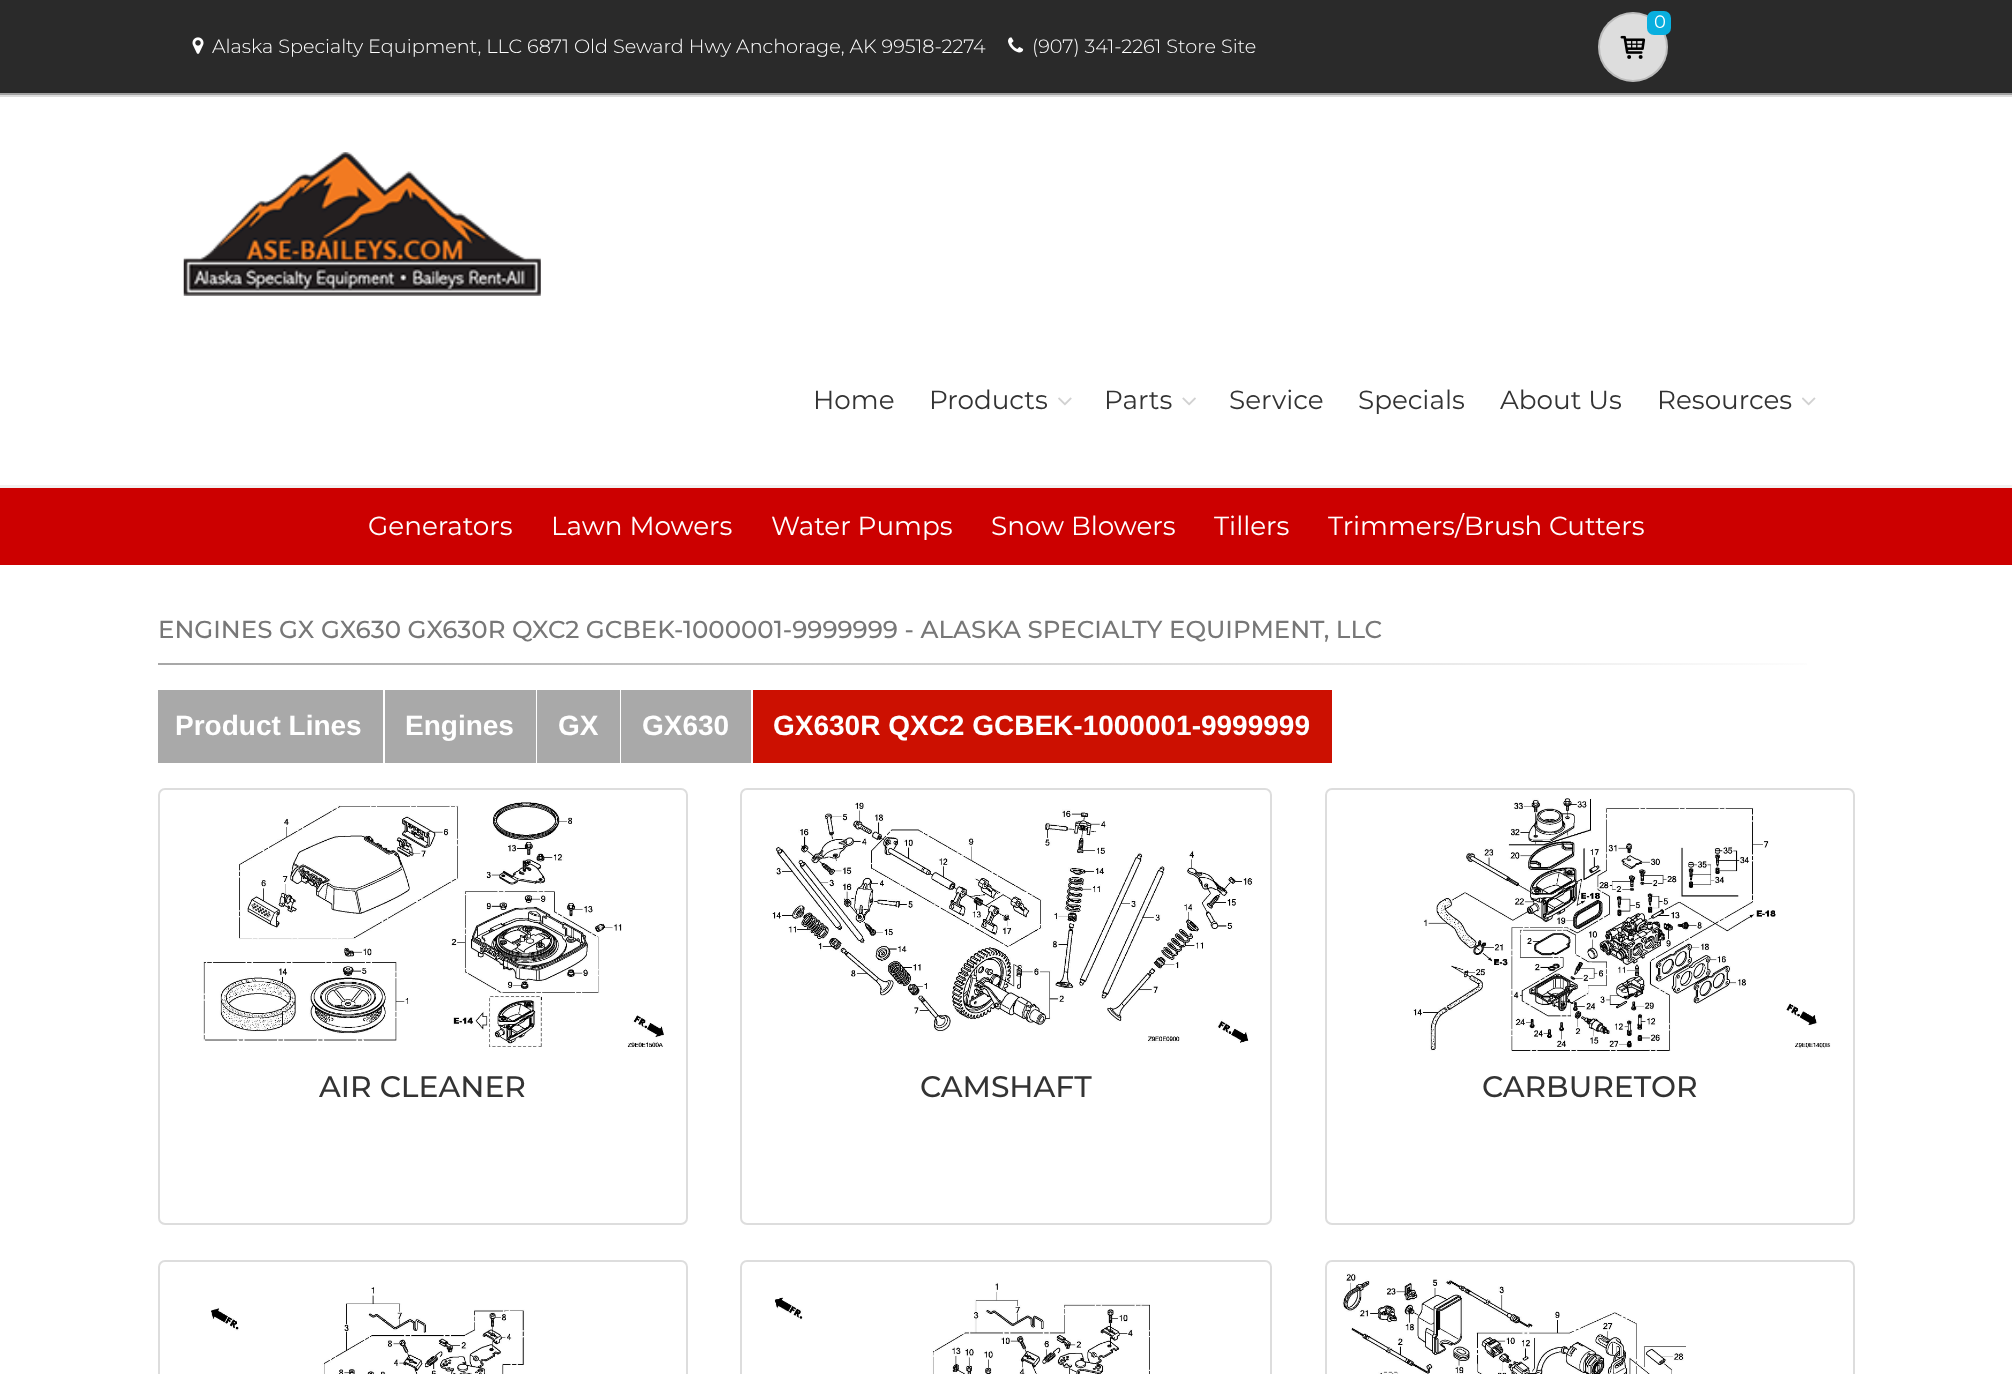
async function draw(canvas) {
	canvas.width = 2012;
	canvas.height = 1374;
	const c = canvas.getContext('2d');
	c.miterLimit = 4;
	c.fontKerning = 'normal';
	async function loadImage(src) {
		const img = new Image();
		img.src = src;
		await img.decode();
		return img;
	}
	let gradient;

	c.fillStyle = '#fff';
	c.fillRect(0, 0, 2012, 1374);
	c.fillStyle = '#2a2a2a';
	c.fillRect(0, 0, 2012, 93);
	c.fillStyle = '#a1a1a1';
	c.fillRect(0, 93, 2012, 2);
	c.fillStyle = '#ddd';
	c.beginPath();
	c.arc(1633, 47, 35, 0, 2 * Math.PI);
	c.fill();
	c.beginPath();
	c.arc(1633, 47, 34, 0, 2 * Math.PI);
	c.strokeStyle = '#00000026';
	c.lineWidth = 2;
	c.stroke();
	c.fillStyle = '#09afdf';
	c.beginPath();
	c.roundRect(1647, 11, 24, 24, 7);
	c.fill();
	c.font = '18px Montserrat';
	c.fillStyle = '#fff';
	c.fillText('0', 1654, 28);
	c.drawImage(await loadImage('img1.png'), 1620, 35, 26, 24);
	c.drawImage(await loadImage('img2.png'), 192, 37, 12, 17);
	c.font = '300 19.25px Montserrat';
	c.fillText('Alaska Specialty Equipment, LLC 6871 Old Seward Hwy Anchorage, AK 99518-2274', 212, 53);
	c.drawImage(await loadImage('img3.png'), 1008, 37, 16, 16);
	c.fillText('(907) 341-2261 Store Site', 1032, 53);
	c.fillStyle = '#ddd';
	c.fillRect(0, 95, 2012, 2);
	c.fillStyle = '#f1f1f1';
	c.fillRect(0, 485, 2012, 3);
	c.drawImage(await loadImage('img4.png'), 183, 152, 358, 144);
	c.font = '26.25px Montserrat';
	c.fillStyle = '#333';
	c.fillText('Home', 813, 409);
	c.fillText('Products', 929, 409);
	c.drawImage(await loadImage('img5.png'), 1058, 397, 14, 9);
	c.fillText('Parts', 1104, 409);
	c.drawImage(await loadImage('img6.png'), 1182, 397, 14, 9);
	for (const [text, x, y] of [
		['Service', 1229, 409],
		['Specials', 1358, 409],
		['About Us', 1500, 409],
		['Resources', 1657, 409],
	]) {
		c.fillText(text, x, y);
	}
	c.drawImage(await loadImage('img7.png'), 1802, 397, 14, 9);
	c.fillStyle = '#c00';
	c.fillRect(0, 488, 2012, 77);
	c.fillStyle = '#fff';
	for (const [text, x, y] of [
		['Generators', 368, 535],
		['Lawn Mowers', 551, 535],
		['Water Pumps', 771, 535],
		['Snow Blowers', 991, 535],
		['Tillers', 1214, 535],
		['Trimmers/Brush Cutters', 1328, 535],
	]) {
		c.fillText(text, x, y);
	}
	c.font = '500 24.5px Montserrat';
	c.fillStyle = '#777';
	c.fillText('ENGINES GX GX630 GX630R QXC2 GCBEK-1000001-9999999 - ALASKA SPECIALTY EQUIPMENT, LLC', 158, 638);
	gradient = c.createLinearGradient(158, 664, 1855, 664);
	gradient.addColorStop(0, '#a7a7a7');
	gradient.addColorStop(1, '#fff');
	c.fillStyle = gradient;
	c.fillRect(158, 663, 1649, 2);
	c.fillStyle = '#a9a9a9';
	c.fillRect(158, 690, 225, 73);
	c.font = 'bold 28px Liberation Sans';
	c.fillStyle = '#fff';
	c.fillText('Product Lines', 175, 735);
	c.fillStyle = '#a9a9a9';
	c.fillRect(385, 690, 151, 73);
	c.fillStyle = '#fff';
	c.fillText('Engines', 405, 735);
	c.fillStyle = '#a9a9a9';
	c.fillRect(537, 690, 83, 73);
	c.fillStyle = '#fff';
	c.fillText('GX', 558, 735);
	c.fillStyle = '#a9a9a9';
	c.fillRect(621, 690, 130, 73);
	c.fillStyle = '#fff';
	c.fillText('GX630', 642, 735);
	c.fillStyle = '#cc1001';
	c.fillRect(753, 690, 579, 73);
	c.fillStyle = '#fff';
	c.fillText('GX630R QXC2 GCBEK-1000001-9999999', 773, 735);
	c.beginPath();
	c.roundRect(159, 789, 528, 435, 6);
	c.strokeStyle = '#ddd';
	c.stroke();
	c.drawImage(await loadImage('img8.png'), 203, 802, 461, 245);
	c.font = '500 29.75px Montserrat';
	c.fillStyle = '#333';
	c.fillText('AIR CLEANER', 319, 1097);
	c.beginPath();
	c.roundRect(741, 789, 530, 435, 6);
	c.stroke();
	c.drawImage(await loadImage('img9.png'), 772, 802, 481, 241);
	c.fillText('CAMSHAFT', 920, 1097);
	c.beginPath();
	c.roundRect(1326, 789, 528, 435, 6);
	c.stroke();
	c.drawImage(await loadImage('img10.png'), 1413, 798, 418, 253);
	c.fillText('CARBURETOR', 1482, 1097);
	c.beginPath();
	c.roundRect(159, 1261, 528, 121, 6);
	c.stroke();
	c.drawImage(await loadImage('img11.png'), 211, 1287, 314, 87);
	c.beginPath();
	c.roundRect(741, 1261, 530, 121, 6);
	c.stroke();
	c.drawImage(await loadImage('img12.png'), 774, 1282, 376, 92);
	c.beginPath();
	c.roundRect(1326, 1261, 528, 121, 6);
	c.stroke();
	c.drawImage(await loadImage('img13.png'), 1342, 1273, 344, 101);
}

draw(document.querySelector('canvas'));
